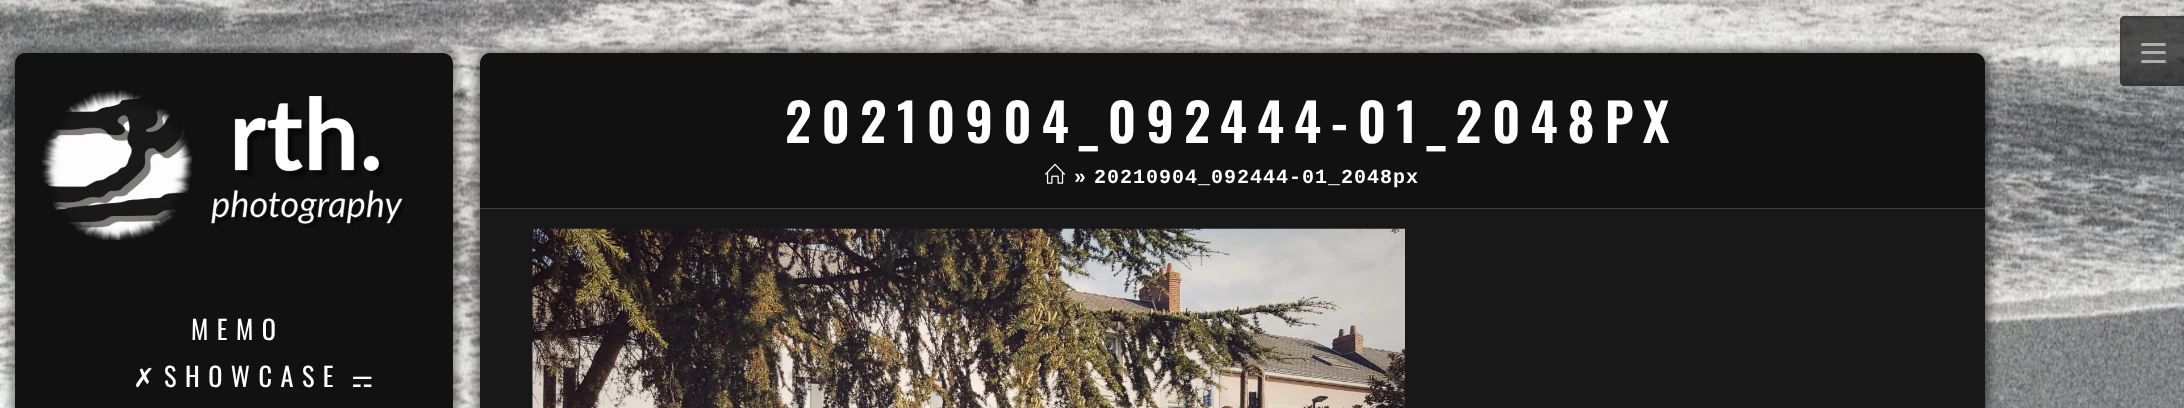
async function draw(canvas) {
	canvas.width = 2184;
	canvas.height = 408;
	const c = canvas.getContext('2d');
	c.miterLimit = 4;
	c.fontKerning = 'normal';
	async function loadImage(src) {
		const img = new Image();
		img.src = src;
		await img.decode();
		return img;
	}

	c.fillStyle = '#fff';
	c.fillRect(0, 0, 2184, 408);
	c.drawImage(await loadImage('img1.png'), 0, 0, 2184, 408);
	c.fillStyle = '#232323c4';
	c.beginPath();
	c.moveTo(2124, 16);
	c.lineTo(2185, 16);
	c.lineTo(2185, 86);
	c.lineTo(2124, 86);
	c.bezierCurveTo(2122, 86, 2120, 84, 2120, 82);
	c.lineTo(2120, 20);
	c.bezierCurveTo(2120, 18, 2122, 16, 2124, 16);
	c.closePath();
	c.fill();
	c.fillStyle = '#2323233b';
	c.beginPath();
	c.moveTo(2124, 16);
	c.lineTo(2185, 16);
	c.lineTo(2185, 86);
	c.lineTo(2124, 86);
	c.bezierCurveTo(2122, 86, 2120, 85, 2120, 82);
	c.lineTo(2120, 20);
	c.bezierCurveTo(2120, 18, 2122, 16, 2124, 16);
	c.closePath();
	c.moveTo(2124, 19);
	c.lineTo(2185, 19);
	c.lineTo(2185, 84);
	c.lineTo(2124, 84);
	c.bezierCurveTo(2123, 84, 2122, 83, 2122, 82);
	c.lineTo(2122, 20);
	c.bezierCurveTo(2122, 19, 2123, 19, 2124, 19);
	c.closePath();
	c.fill('evenodd');
	c.fillStyle = '#afafaf';
	c.beginPath();
	c.roundRect(2141, 51, 25, 3, 1.5);
	c.fill();
	c.beginPath();
	c.roundRect(2141, 43, 25, 3, 1.5);
	c.fill();
	c.beginPath();
	c.roundRect(2141, 60, 25, 3, 1.5);
	c.fill();
	c.fillStyle = '#00000026';
	c.filter = 'blur(2.5px)';
	c.beginPath();
	c.roundRect(480, 54, 1505, 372, 10);
	c.fill();
	c.filter = 'none';
	c.fillStyle = '#181818';
	c.beginPath();
	c.roundRect(480, 53, 1505, 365, 10);
	c.fill();
	c.save();
	c.beginPath();
	c.moveTo(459, 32);
	c.lineTo(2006, 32);
	c.lineTo(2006, 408);
	c.lineTo(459, 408);
	c.closePath();
	c.moveTo(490, 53);
	c.lineTo(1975, 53);
	c.bezierCurveTo(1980.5, 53, 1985, 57.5, 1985, 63);
	c.lineTo(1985, 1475);
	c.lineTo(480, 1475);
	c.lineTo(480, 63);
	c.bezierCurveTo(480, 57.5, 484.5, 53, 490, 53);
	c.closePath();
	c.clip('evenodd');
	c.fillStyle = '#00000066';
	c.filter = 'blur(5px)';
	c.beginPath();
	c.roundRect(475, 48, 1515, 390, 15);
	c.fill();
	c.filter = 'none';
	c.restore();
	c.fillStyle = '#111';
	c.beginPath();
	c.roundRect(480, 53, 1505, 156, [10, 10, 0, 0]);
	c.fill();
	c.fillStyle = '#424242';
	c.fillRect(480, 208, 1505, 1);
	c.letterSpacing = '10px';
	c.font = '600 52.5px Oswald';
	c.fillStyle = '#fff';
	c.fillText('20210904_092444-01_2048PX', 785, 143);
	c.drawImage(await loadImage('img2.png'), 1045, 163, 20, 21);
	c.letterSpacing = '1px';
	c.font = 'bold 20px Liberation Mono';
	c.fillText('»', 1074, 183);
	c.fillText('20210904_092444-01_2048px', 1094, 183);
	c.drawImage(await loadImage('img3.png'), 532, 228, 873, 180);
	c.fillStyle = '#00000066';
	c.filter = 'blur(5px)';
	c.beginPath();
	c.roundRect(10, 48, 448, 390, 15);
	c.fill();
	c.filter = 'none';
	c.fillStyle = '#111';
	c.beginPath();
	c.roundRect(15, 53, 438, 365, 10);
	c.fill();
	c.drawImage(await loadImage('img4.png'), 41, 90, 364, 150);
	c.letterSpacing = '1.25px';
	c.font = '26.25px Oswald';
	c.fillStyle = '#fff';
	c.fillText('M E M O', 191, 340);
	c.font = '26.25px DejaVu Sans';
	c.fillText('✗', 133, 387);
	c.font = '26.25px Oswald';
	c.fillText('S H O W C A S E', 164, 387);
	c.font = '25px DejaVu Sans';
	c.fillText('⚎', 351, 387);
}

draw(document.querySelector('canvas'));
